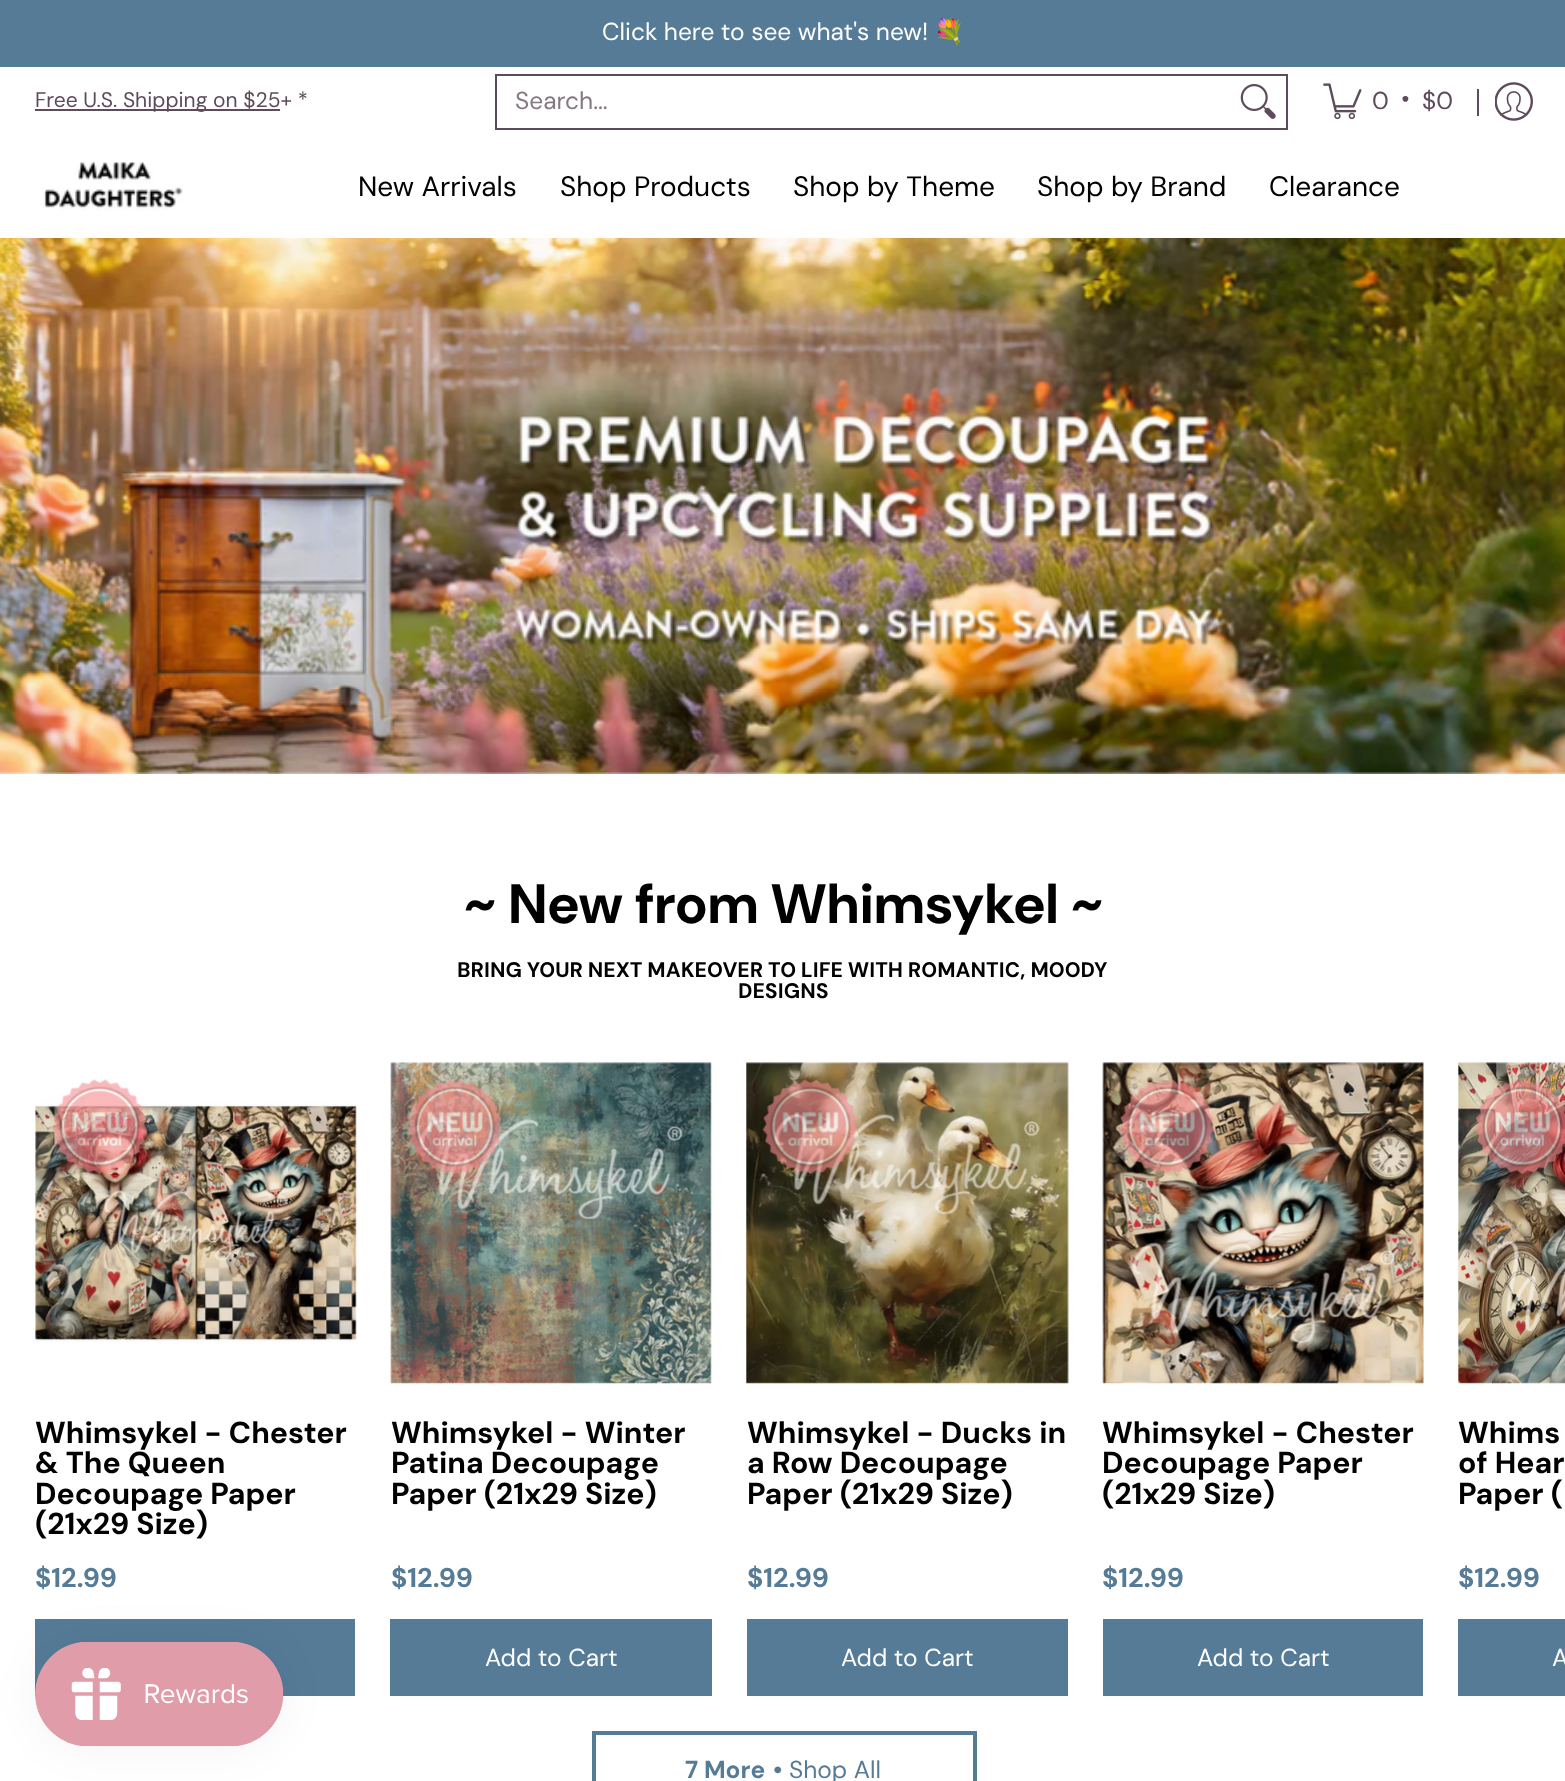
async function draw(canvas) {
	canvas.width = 1565;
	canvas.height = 1781;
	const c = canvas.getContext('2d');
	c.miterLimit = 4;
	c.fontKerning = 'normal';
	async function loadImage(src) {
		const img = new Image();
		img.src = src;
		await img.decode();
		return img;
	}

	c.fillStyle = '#fff';
	c.fillRect(0, 0, 1565, 1781);
	c.fillStyle = '#557b97';
	c.fillRect(0, 0, 1565, 67);
	c.font = '24.5px DM Sans';
	c.fillStyle = '#fdfdfd';
	c.fillText('Click here to see what\'s new!', 602, 40);
	c.font = '24.5px Noto Color Emoji';
	c.fillText('💐', 934, 40);
	c.fillStyle = '#5d4a5a';
	c.fillRect(35, 109, 245, 2);
	c.font = '21px "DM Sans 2"';
	c.fillText('Free U.S. Shipping on $25+ *', 35, 107);
	c.strokeStyle = '#5d4a5a';
	c.lineWidth = 2;
	c.strokeRect(496, 75, 791, 54);
	c.font = '24.5px DM Sans';
	c.fillStyle = '#857783';
	c.fillText('Search...', 515, 109);
	c.drawImage(await loadImage('img1.png'), 1240, 84, 36, 35);
	c.drawImage(await loadImage('img2.png'), 1323, 83, 39, 37);
	c.fillStyle = '#5d4a5a';
	for (const [text, x, y] of [
		['0', 1372, 109],
		['•', 1401, 107],
		['$0', 1422, 109],
	]) {
		c.fillText(text, x, y);
	}
	c.fillRect(1477, 89, 2, 27);
	c.drawImage(await loadImage('img3.png'), 1495, 82, 38, 39);
	c.drawImage(await loadImage('img4.png'), 43, 162, 140, 48);
	c.font = '28px "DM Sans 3"';
	c.fillStyle = '#000';
	for (const [text, x, y] of [
		['New Arrivals', 358, 196],
		['Shop Products', 560, 196],
		['Shop by Theme', 793, 196],
		['Shop by Brand', 1037, 196],
		['Clearance', 1269, 196],
	]) {
		c.fillText(text, x, y);
	}
	c.drawImage(await loadImage('img5.png'), 0, 238, 1565, 536);
	c.font = 'bold 55.5px "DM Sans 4"';
	c.fillText('~ New from Whimsykel ~', 464, 923);
	c.wordSpacing = '-0.25px';
	c.font = 'bold 21px "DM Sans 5"';
	c.fillText('BRING YOUR NEXT MAKEOVER TO LIFE WITH ROMANTIC, MOODY', 457, 977);
	c.wordSpacing = '0px';
	c.fillText('DESIGNS', 738, 998);
	c.drawImage(await loadImage('img6.png'), 35, 1079, 322, 265);
	c.font = 'bold 30.25px DM Sans';
	for (const [text, x, y] of [
		['Whimsykel - Chester', 35, 1443],
		['& The Queen', 35, 1473],
		['Decoupage Paper', 35, 1504],
		['(21x29 Size)', 35, 1534],
	]) {
		c.fillText(text, x, y);
	}
	c.font = 'bold 27px "DM Sans 2"';
	c.fillStyle = '#557b97';
	c.fillText('$12.99', 35, 1587);
	c.fillRect(35, 1619, 320, 77);
	c.drawImage(await loadImage('img7.png'), 390, 1062, 322, 322);
	c.font = 'bold 30.25px DM Sans';
	c.fillStyle = '#000';
	for (const [text, x, y] of [
		['Whimsykel - Winter', 391, 1443],
		['Patina Decoupage', 391, 1473],
		['Paper (21x29 Size)', 391, 1504],
	]) {
		c.fillText(text, x, y);
	}
	c.font = 'bold 27px "DM Sans 2"';
	c.fillStyle = '#557b97';
	c.fillText('$12.99', 391, 1587);
	c.fillRect(390, 1619, 322, 77);
	c.font = '24.5px DM Sans';
	c.fillStyle = '#fdfdfd';
	c.fillText('Add to Cart', 485, 1666);
	c.drawImage(await loadImage('img8.png'), 746, 1062, 323, 322);
	c.font = 'bold 30.25px DM Sans';
	c.fillStyle = '#000';
	for (const [text, x, y] of [
		['Whimsykel - Ducks in', 747, 1443],
		['a Row Decoupage', 747, 1473],
		['Paper (21x29 Size)', 747, 1504],
	]) {
		c.fillText(text, x, y);
	}
	c.font = 'bold 27px "DM Sans 2"';
	c.fillStyle = '#557b97';
	c.fillText('$12.99', 747, 1587);
	c.fillRect(747, 1619, 321, 77);
	c.font = '24.5px DM Sans';
	c.fillStyle = '#fdfdfd';
	c.fillText('Add to Cart', 841, 1666);
	c.drawImage(await loadImage('img9.png'), 1102, 1062, 322, 322);
	c.font = 'bold 30.25px DM Sans';
	c.fillStyle = '#000';
	for (const [text, x, y] of [
		['Whimsykel - Chester', 1102, 1443],
		['Decoupage Paper', 1102, 1473],
		['(21x29 Size)', 1102, 1504],
	]) {
		c.fillText(text, x, y);
	}
	c.font = 'bold 27px "DM Sans 2"';
	c.fillStyle = '#557b97';
	c.fillText('$12.99', 1102, 1587);
	c.fillRect(1103, 1619, 320, 77);
	c.font = '24.5px DM Sans';
	c.fillStyle = '#fdfdfd';
	c.fillText('Add to Cart', 1197, 1666);
	c.drawImage(await loadImage('img10.png'), 1458, 1062, 107, 322);
	c.font = 'bold 30.25px DM Sans';
	c.fillStyle = '#000';
	for (const [text, x, y] of [
		['Whims', 1458, 1443],
		['of Hear', 1458, 1473],
		['Paper (', 1458, 1504],
	]) {
		c.fillText(text, x, y);
	}
	c.font = 'bold 27px "DM Sans 2"';
	c.fillStyle = '#557b97';
	c.fillText('$12.99', 1458, 1587);
	c.fillRect(1458, 1619, 107, 77);
	c.font = '24.5px DM Sans';
	c.fillStyle = '#fdfdfd';
	c.fillText('A', 1552, 1666);
	c.strokeStyle = '#557b97';
	c.lineWidth = 4;
	c.strokeRect(594, 1733, 381, 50);
	c.font = 'bold 24.5px "DM Sans 3"';
	c.fillStyle = '#557b97';
	c.fillText('7 More', 685, 1778);
	c.fillText('•', 773, 1778);
	c.font = '24.5px DM Sans';
	c.fillText('Shop All', 789, 1778);
	c.fillStyle = '#0000000d';
	c.filter = 'blur(22px)';
	c.beginPath();
	c.roundRect(35, 1642, 249, 105, 52.5);
	c.fill();
	c.filter = 'none';
	c.drawImage(await loadImage('img11.png'), 35, 1641, 249, 106);
}

draw(document.querySelector('canvas'));
